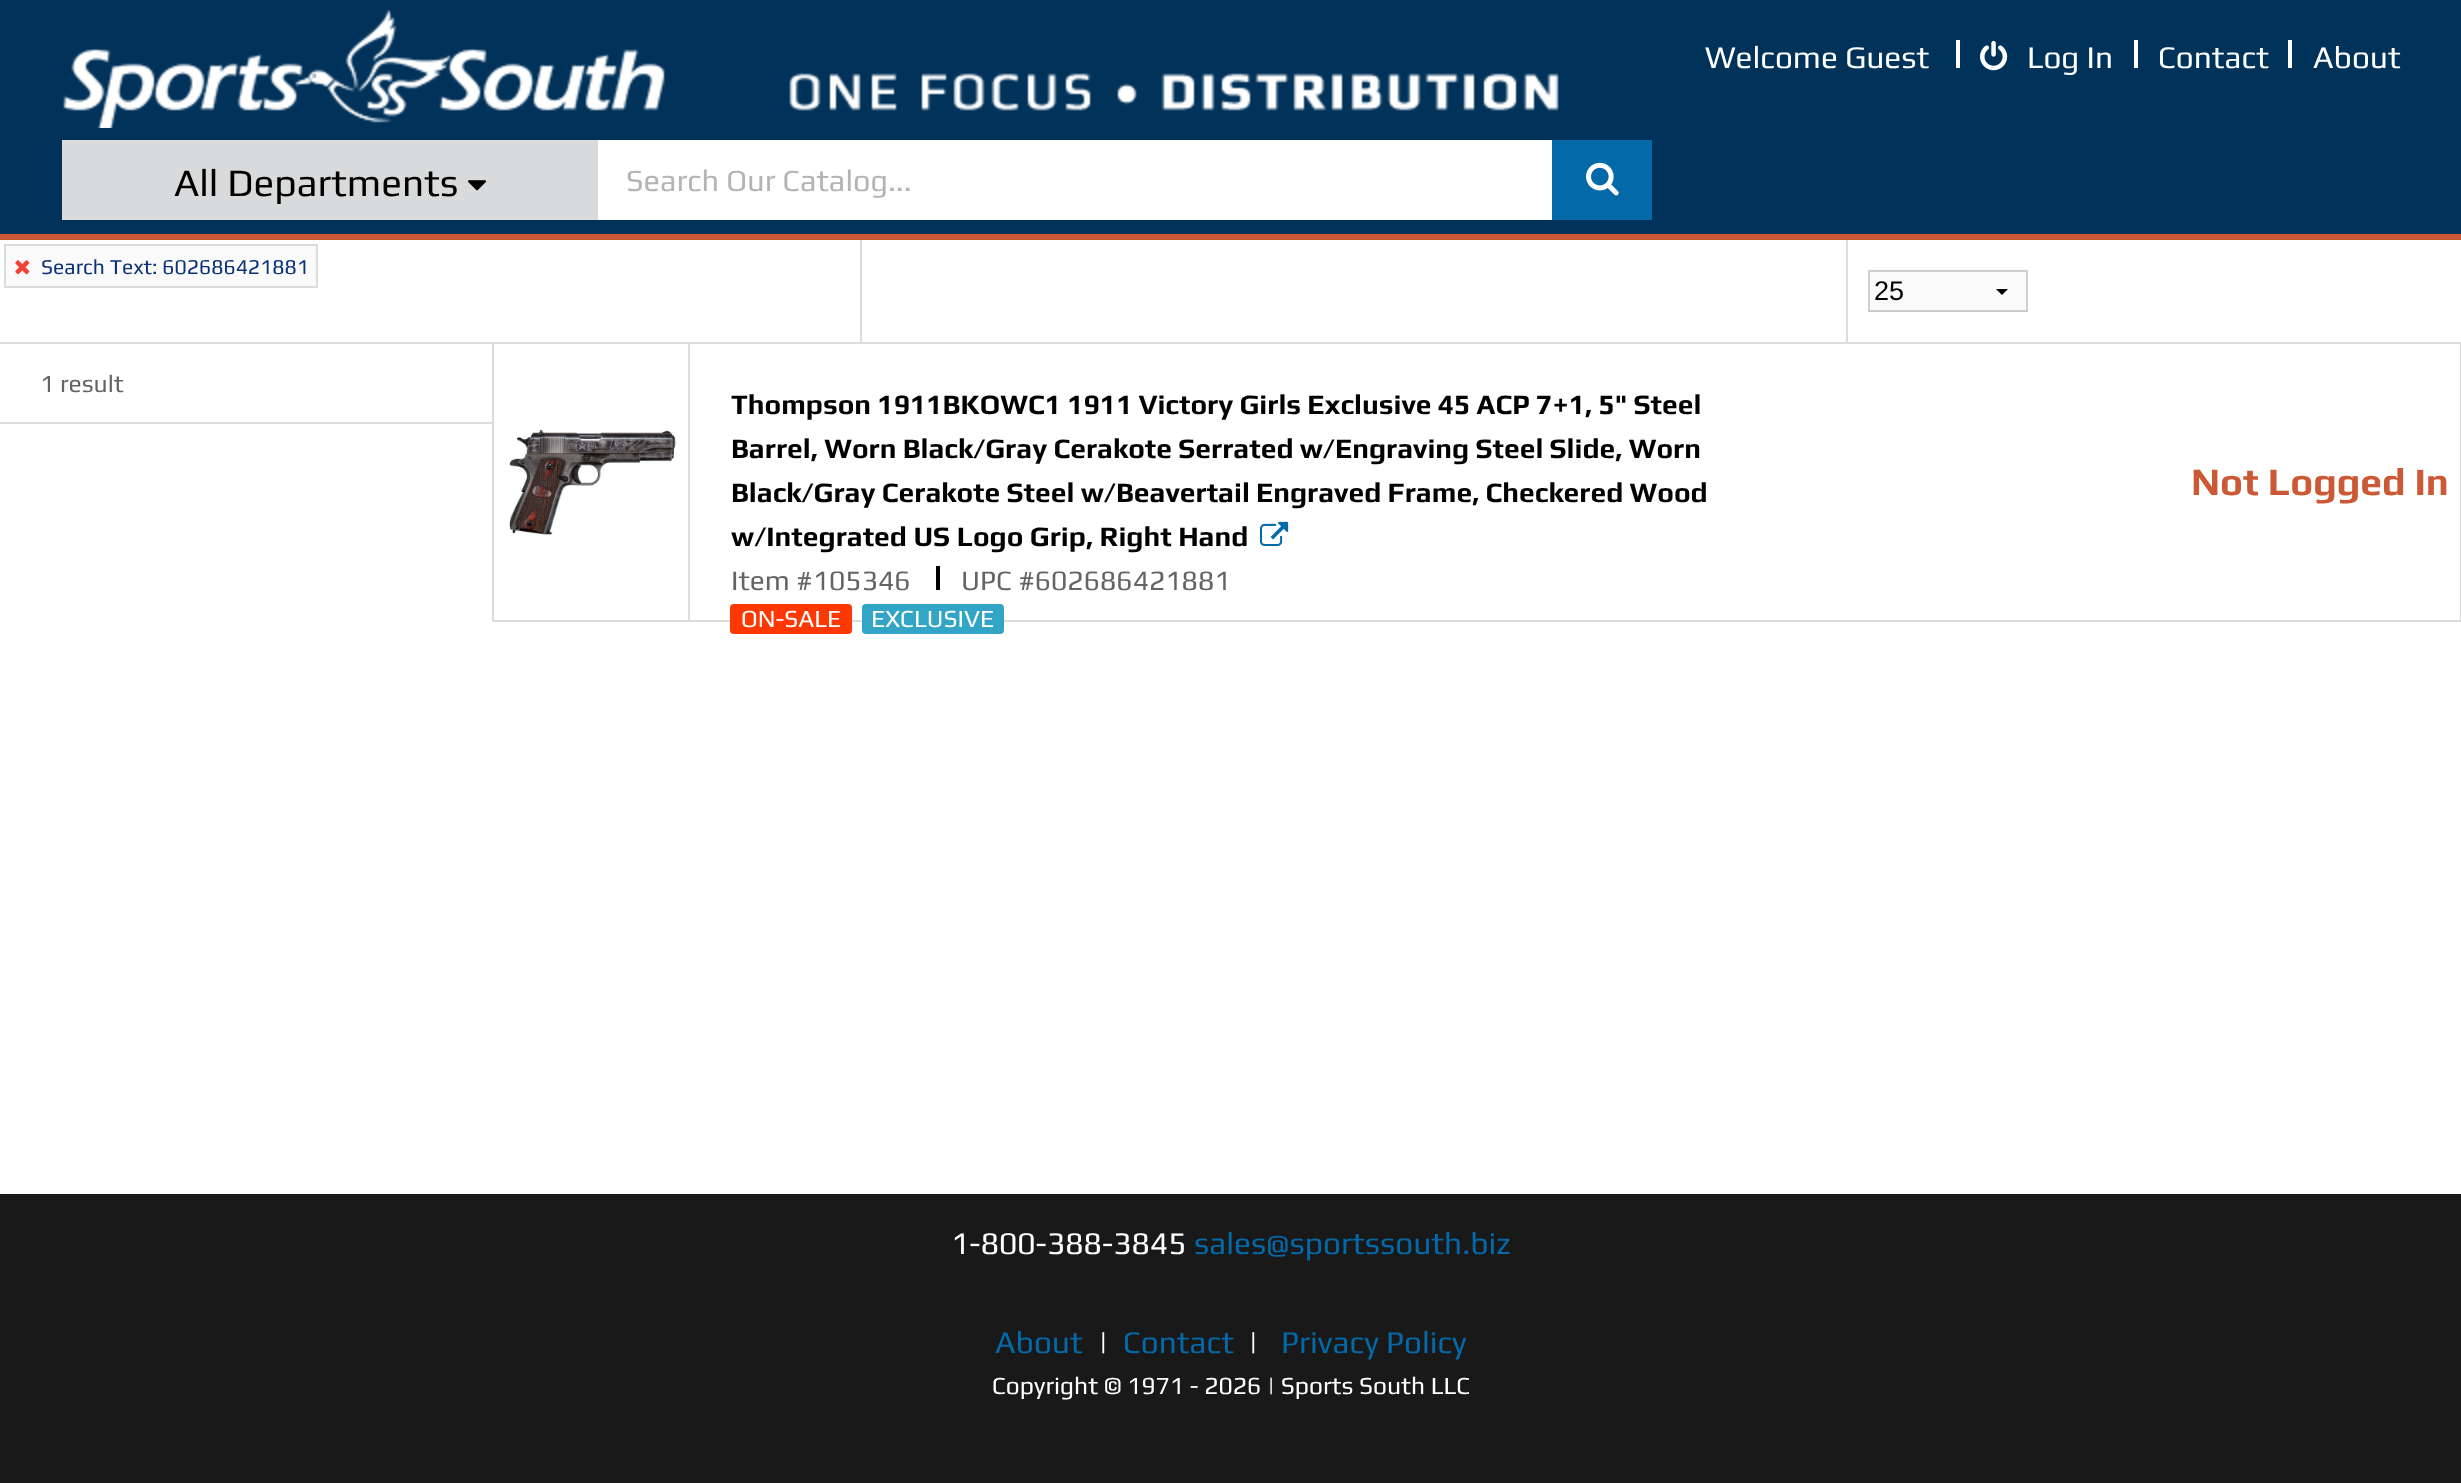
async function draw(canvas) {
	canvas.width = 2461;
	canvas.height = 1483;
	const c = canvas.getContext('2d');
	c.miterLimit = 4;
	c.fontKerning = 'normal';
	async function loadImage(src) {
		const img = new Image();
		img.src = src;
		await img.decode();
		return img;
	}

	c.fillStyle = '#fff';
	c.fillRect(0, 0, 2461, 1483);
	c.fillStyle = '#00325a';
	c.fillRect(0, 0, 2461, 234);
	c.fillStyle = '#cb5935';
	c.fillRect(0, 234, 2461, 6);
	c.drawImage(await loadImage('img1.png'), 63, 10, 1496, 118);
	c.font = '31.6px Play';
	c.fillStyle = '#fff';
	c.fillText('Welcome Guest', 1705, 68);
	c.fillRect(1956, 40, 4, 28);
	c.drawImage(await loadImage('img2.png'), 1980, 40, 28, 31);
	c.fillText('Log In', 2027, 68);
	c.fillRect(2134, 40, 4, 28);
	c.fillText('Contact', 2158, 68);
	c.fillRect(2288, 40, 4, 28);
	c.fillText('About', 2313, 68);
	c.fillStyle = '#d9dadb';
	c.fillRect(62, 140, 536, 80);
	c.font = '38.75px Play';
	c.fillStyle = '#000';
	c.fillText('All Departments', 174, 196);
	c.drawImage(await loadImage('img3.png'), 468, 180, 19, 11);
	c.fillStyle = '#fff';
	c.fillRect(598, 140, 954, 80);
	c.font = '30.75px Play';
	c.fillStyle = '#b4b4b4';
	c.fillText('Search Our Catalog...', 626, 191);
	c.fillStyle = '#0469a8';
	c.fillRect(1552, 140, 100, 80);
	c.drawImage(await loadImage('img4.png'), 1586, 162, 33, 34);
	c.fillStyle = '#dcdcdc';
	c.fillRect(860, 240, 2, 102);
	c.fillStyle = '#fafafa';
	c.beginPath();
	c.rect(5, 245, 312, 42);
	c.fill();
	c.strokeStyle = '#dcdcdc';
	c.lineWidth = 2;
	c.stroke();
	c.drawImage(await loadImage('img5.png'), 15, 260, 15, 15);
	c.font = '21.1px Play';
	c.fillStyle = '#0a3278';
	c.fillText('Search Text: 602686421881', 41, 274);
	c.fillStyle = '#dcdcdc';
	c.fillRect(1846, 240, 2, 102);
	c.fillStyle = '#fafafa';
	c.fillRect(1870, 272, 156, 38);
	c.fillStyle = '#000';
	c.beginPath();
	c.moveTo(2008, 289);
	c.lineTo(2002, 295);
	c.lineTo(1996, 289);
	c.closePath();
	c.fill();
	c.strokeStyle = '#cdcdcd';
	c.strokeRect(1869, 271, 158, 40);
	c.font = '27px Liberation Sans';
	c.fillText('25', 1874, 300);
	c.fillStyle = '#dcdcdc';
	c.fillRect(0, 342, 492, 2);
	c.fillRect(0, 422, 492, 2);
	c.font = '24.6px Play';
	c.fillStyle = '#646464';
	c.fillText('1 result', 40, 392);
	c.strokeStyle = '#dcdcdc';
	c.strokeRect(493, 343, 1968, 278);
	c.fillStyle = '#dcdcdc';
	c.fillRect(688, 344, 2, 276);
	c.drawImage(await loadImage('img6.png'), 509, 429, 167, 106);
	c.wordSpacing = '-0.25px';
	c.font = 'bold 28.15px Play';
	c.fillStyle = '#000';
	for (const [text, x, y] of [
		['Thompson 1911BKOWC1 1911 Victory Girls Exclusive 45 ACP 7+1, 5" Steel', 731, 414],
		['Barrel, Worn Black/Gray Cerakote Serrated w/Engraving Steel Slide, Worn', 731, 458],
		['Black/Gray Cerakote Steel w/Beavertail Engraved Frame, Checkered Wood', 731, 502],
	]) {
		c.fillText(text, x, y);
	}
	c.wordSpacing = '0px';
	c.fillText('w/Integrated US Logo Grip, Right Hand', 731, 546);
	c.drawImage(await loadImage('img7.png'), 1260, 521, 29, 25);
	c.font = '28.15px Play';
	c.fillStyle = '#646464';
	c.fillText('Item #105346', 731, 590);
	c.fillStyle = '#000';
	c.fillRect(936, 566, 4, 24);
	c.fillStyle = '#646464';
	c.fillText('UPC #602686421881', 961, 590);
	c.fillStyle = '#fd3803';
	c.beginPath();
	c.roundRect(730, 604, 122, 30, 4);
	c.fill();
	c.font = '24.6px Play';
	c.fillStyle = '#fff';
	c.fillText('ON-SALE', 741, 627);
	c.fillStyle = '#32a5c6';
	c.beginPath();
	c.roundRect(862, 604, 142, 30, 4);
	c.fill();
	c.fillStyle = '#fff';
	c.fillText('EXCLUSIVE', 871, 627);
	c.font = 'bold 38.75px Play';
	c.fillStyle = '#cb5935';
	c.fillText('Not Logged In', 2191, 495);
	c.fillStyle = '#191919';
	c.fillRect(0, 1194, 2461, 289);
	c.font = '31.6px Play';
	c.fillStyle = '#fff';
	c.fillText('1-800-388-3845', 951, 1254);
	c.fillStyle = '#0469a8';
	c.fillText('sales@sportssouth.biz', 1194, 1254);
	c.fillText('About', 995, 1353);
	c.fillStyle = '#fff';
	c.fillText('|', 1098, 1353);
	c.fillStyle = '#0469a8';
	c.fillText('Contact', 1123, 1353);
	c.fillStyle = '#fff';
	c.fillText('|', 1248, 1353);
	c.fillStyle = '#0469a8';
	c.fillText('Privacy Policy', 1281, 1353);
	c.font = '24.6px Play';
	c.fillStyle = '#fff';
	c.fillText('Copyright © 1971 - 2026 | Sports South LLC', 992, 1394);
}

draw(document.querySelector('canvas'));
